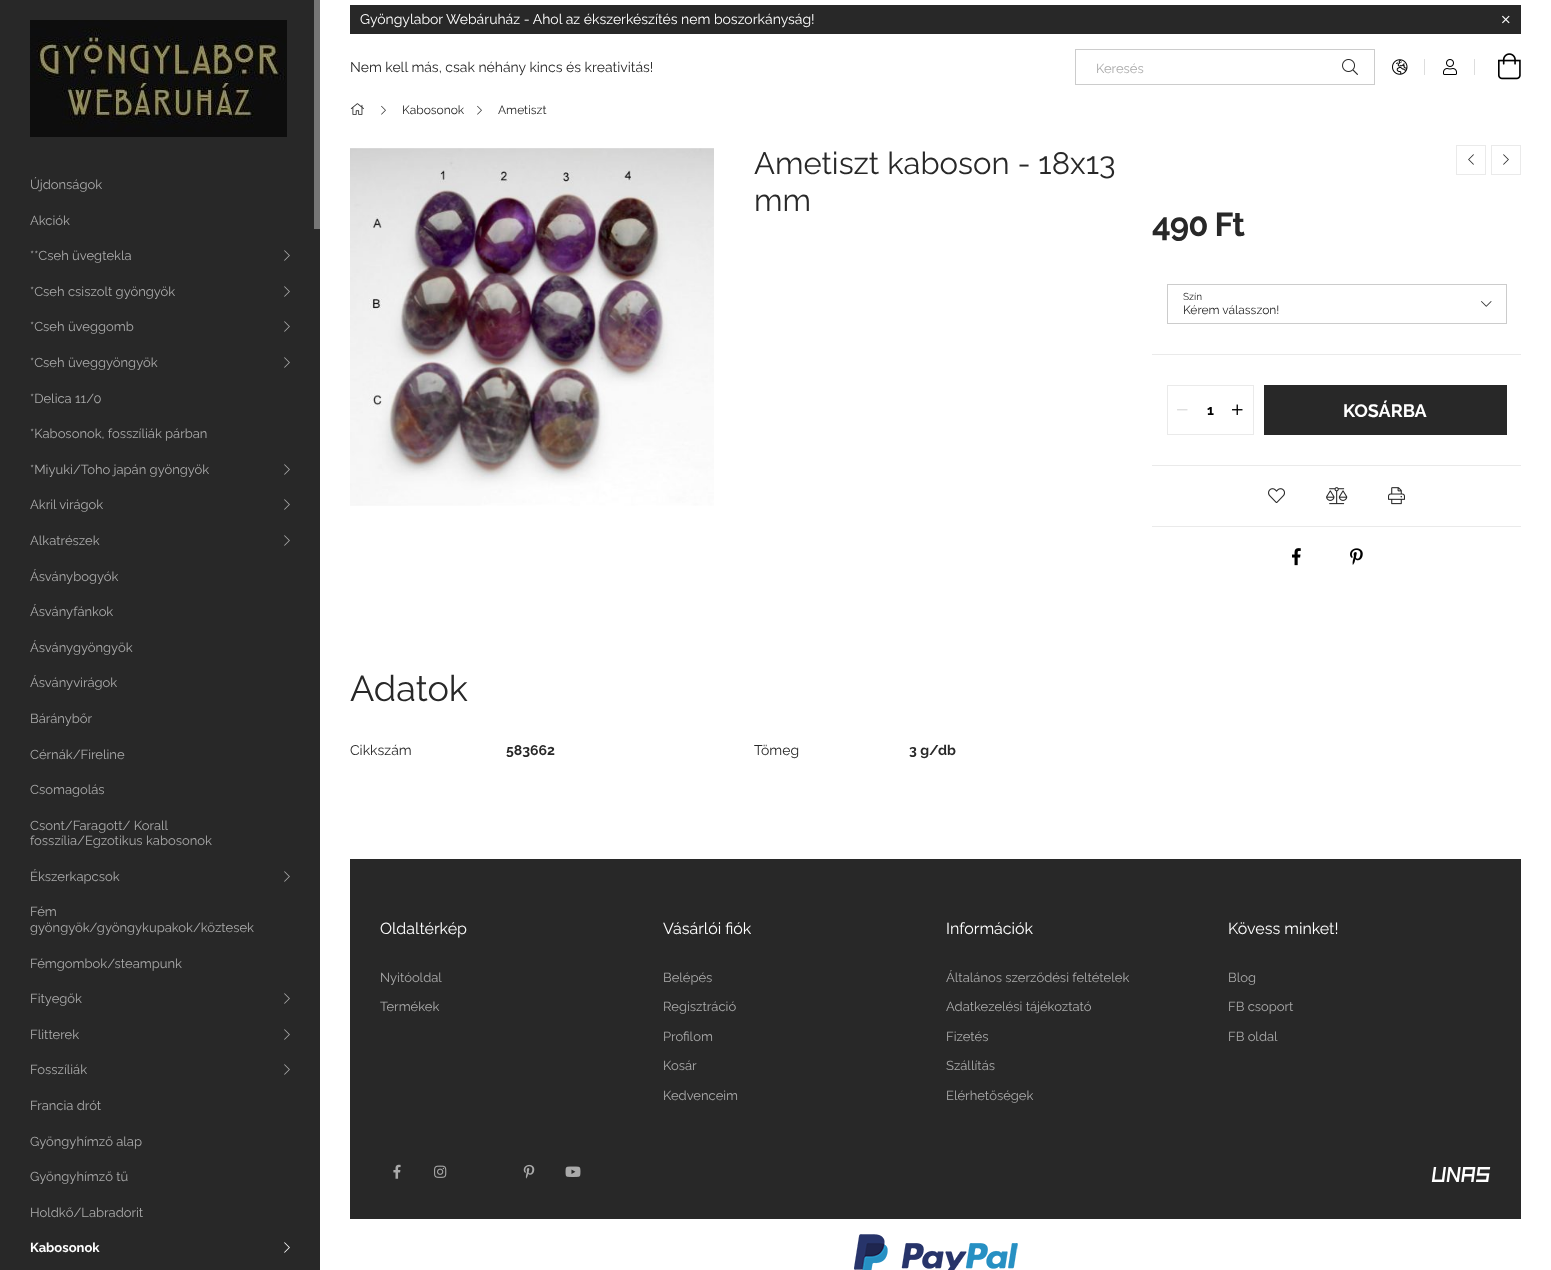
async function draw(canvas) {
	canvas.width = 1551;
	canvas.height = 1270;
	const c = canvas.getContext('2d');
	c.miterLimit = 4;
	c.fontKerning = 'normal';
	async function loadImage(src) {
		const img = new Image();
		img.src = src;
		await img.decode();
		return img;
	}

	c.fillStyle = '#fff';
	c.fillRect(0, 0, 1551, 1270);
	c.fillStyle = '#282828';
	c.fillRect(0, 0, 320, 1270);
	c.fillStyle = '#767676';
	c.fillRect(314, 0, 6, 229);
	c.drawImage(await loadImage('img1.png'), 30, 20, 257, 117);
	c.font = '13px Raleway';
	c.fillStyle = '#aaa';
	for (const [text, x, y] of [
		['Újdonságok', 30, 189],
		['Akciók', 30, 225],
		['**Cseh üvegtekla', 30, 260],
	]) {
		c.fillText(text, x, y);
	}
	c.drawImage(await loadImage('img2.png'), 284, 250, 6, 11);
	c.fillText('*Cseh csiszolt gyöngyök', 30, 296);
	c.drawImage(await loadImage('img2.png'), 284, 286, 6, 11);
	c.fillText('*Cseh üveggomb', 30, 331);
	c.drawImage(await loadImage('img2.png'), 284, 321, 6, 11);
	c.fillText('*Cseh üveggyöngyök', 30, 367);
	c.drawImage(await loadImage('img2.png'), 284, 357, 6, 11);
	for (const [text, x, y] of [
		['*Delica 11/0', 30, 403],
		['*Kabosonok, fosszíliák párban', 30, 438],
		['*Miyuki/Toho japán gyöngyök', 30, 474],
	]) {
		c.fillText(text, x, y);
	}
	c.drawImage(await loadImage('img2.png'), 284, 464, 6, 11);
	c.fillText('Akril virágok', 30, 509);
	c.drawImage(await loadImage('img2.png'), 284, 499, 6, 11);
	c.fillText('Alkatrészek', 30, 545);
	c.drawImage(await loadImage('img2.png'), 284, 535, 6, 11);
	for (const [text, x, y] of [
		['Ásványbogyók', 30, 581],
		['Ásványfánkok', 30, 616],
		['Ásványgyöngyök', 30, 652],
		['Ásványvirágok', 30, 687],
		['Báránybőr', 30, 723],
		['Cérnák/Fireline', 30, 759],
		['Csomagolás', 30, 794],
		['Csont/Faragott/ Korall', 30, 830],
		['fosszília/Egzotikus kabosonok', 30, 845],
		['Ékszerkapcsok', 30, 881],
	]) {
		c.fillText(text, x, y);
	}
	c.drawImage(await loadImage('img2.png'), 284, 871, 6, 11);
	for (const [text, x, y] of [
		['Fém', 30, 916],
		['gyöngyök/gyöngykupakok/köztesek', 30, 932],
		['Fémgombok/steampunk', 30, 968],
		['Fityegők', 30, 1003],
	]) {
		c.fillText(text, x, y);
	}
	c.drawImage(await loadImage('img2.png'), 284, 993, 6, 11);
	c.fillText('Flitterek', 30, 1039);
	c.drawImage(await loadImage('img2.png'), 284, 1029, 6, 11);
	c.fillText('Fosszíliák', 30, 1074);
	c.drawImage(await loadImage('img2.png'), 284, 1064, 6, 11);
	for (const [text, x, y] of [
		['Francia drót', 30, 1110],
		['Gyöngyhímző alap', 30, 1146],
		['Gyöngyhímző tű', 30, 1181],
		['Holdkő/Labradorit', 30, 1217],
	]) {
		c.fillText(text, x, y);
	}
	c.font = 'bold 13px Raleway';
	c.fillStyle = '#fff';
	c.fillText('Kabosonok', 30, 1252);
	c.drawImage(await loadImage('img3.png'), 284, 1242, 6, 11);
	c.fillStyle = '#282828';
	c.fillRect(350, 5, 1171, 29);
	c.font = '14px Raleway';
	c.fillStyle = '#fff';
	c.fillText('Gyöngylabor Webáruház - Ahol az ékszerkészítés nem boszorkányság!', 360, 24);
	c.drawImage(await loadImage('img4.png'), 1502, 15, 8, 9);
	c.fillStyle = '#282828';
	c.fillText('Nem kell más, csak néhány kincs és kreativitás!', 350, 72);
	c.strokeStyle = '#ccc';
	c.strokeRect(1075.5, 49.5, 299, 35);
	c.font = '13px Raleway';
	c.fillStyle = '#aaa';
	c.fillText('Keresés', 1096, 73);
	c.drawImage(await loadImage('img5.png'), 1342, 59, 16, 16);
	c.drawImage(await loadImage('img6.png'), 1392, 59, 16, 16);
	c.fillStyle = '#ddd';
	c.fillRect(1424, 59, 1, 16);
	c.drawImage(await loadImage('img7.png'), 1443, 59, 14, 16);
	c.fillRect(1474, 59, 1, 16);
	c.drawImage(await loadImage('img8.png'), 1498, 53, 23, 27);
	c.drawImage(await loadImage('img9.png'), 350, 103, 14, 12);
	c.drawImage(await loadImage('img10.png'), 381, 105, 5, 10);
	c.font = '12px Raleway';
	c.fillStyle = '#282828';
	c.fillText('Kabosonok', 402, 114);
	c.drawImage(await loadImage('img10.png'), 477, 105, 5, 10);
	c.fillText('Ametiszt', 498, 114);
	c.drawImage(await loadImage('img11.png'), 350, 148, 364, 358);
	c.font = '31px Raleway';
	c.fillText('Ametiszt kaboson - 18x13', 754, 174);
	c.fillText('mm', 754, 211);
	c.strokeStyle = '#eaeaea';
	c.strokeRect(1456.5, 145.5, 29, 29);
	c.drawImage(await loadImage('img12.png'), 1468, 154, 6, 11);
	c.strokeRect(1491.5, 145.5, 29, 29);
	c.drawImage(await loadImage('img13.png'), 1503, 154, 6, 11);
	c.letterSpacing = '-1px';
	c.font = 'bold 33px Raleway';
	c.fillText('490 Ft', 1152, 236);
	c.fillStyle = '#eaeaea';
	c.fillRect(1152, 354, 369, 1);
	c.strokeStyle = '#ccc';
	c.strokeRect(1167.5, 284.5, 339, 39);
	c.letterSpacing = '0px';
	c.font = '10px Raleway';
	c.fillStyle = '#282828';
	c.fillText('Szín', 1183, 300);
	c.drawImage(await loadImage('img14.png'), 1481, 301, 11, 6);
	c.font = '12px Raleway';
	c.fillText('Kérem válasszon!', 1183, 314);
	c.strokeStyle = '#eaeaea';
	c.strokeRect(1167.5, 385.5, 86, 49);
	c.drawImage(await loadImage('img15.png'), 1177, 409, 11, 2);
	c.font = 'bold 14px Raleway';
	c.fillStyle = '#000';
	c.fillText('1', 1207, 415);
	c.drawImage(await loadImage('img16.png'), 1232, 404, 11, 11);
	c.fillStyle = '#282828';
	c.fillRect(1264, 385, 243, 50);
	c.font = 'bold 18px Raleway';
	c.fillStyle = '#fff';
	c.fillText('KOSÁRBA', 1343, 417);
	c.fillStyle = '#eaeaea';
	c.fillRect(1152, 465, 369, 1);
	c.drawImage(await loadImage('img17.png'), 1268, 488, 17, 15);
	c.drawImage(await loadImage('img18.png'), 1326, 487, 22, 18);
	c.drawImage(await loadImage('img19.png'), 1388, 487, 17, 18);
	c.fillRect(1152, 526, 369, 1);
	c.drawImage(await loadImage('img20.png'), 1292, 548, 9, 18);
	c.drawImage(await loadImage('img21.png'), 1350, 548, 13, 17);
	c.font = '36px Raleway';
	c.fillStyle = '#282828';
	c.fillText('Adatok', 350, 701);
	c.font = '14px Raleway';
	c.fillText('Cikkszám', 350, 755);
	c.font = 'bold 14px Raleway';
	c.fillText('583662', 506, 755);
	c.font = '14px Raleway';
	c.fillText('Tömeg', 754, 755);
	c.font = 'bold 14px Raleway';
	c.fillText('3 g/db', 909, 755);
	c.fillRect(350, 859, 1171, 360);
	c.font = '16px Raleway';
	c.fillStyle = '#fff';
	c.fillText('Oldaltérkép', 380, 934);
	c.font = '13px Raleway';
	c.fillStyle = '#aaa';
	c.fillText('Nyitóoldal', 380, 982);
	c.fillText('Termékek', 380, 1011);
	c.font = '16px Raleway';
	c.fillStyle = '#fff';
	c.fillText('Vásárlói fiók', 663, 934);
	c.font = '13px Raleway';
	c.fillStyle = '#aaa';
	for (const [text, x, y] of [
		['Belépés', 663, 982],
		['Regisztráció', 663, 1011],
		['Profilom', 663, 1041],
		['Kosár', 663, 1070],
		['Kedvenceim', 663, 1100],
	]) {
		c.fillText(text, x, y);
	}
	c.font = '16px Raleway';
	c.fillStyle = '#fff';
	c.fillText('Információk', 946, 934);
	c.font = '13px Raleway';
	c.fillStyle = '#aaa';
	for (const [text, x, y] of [
		['Általános szerződési feltételek', 946, 982],
		['Adatkezelési tájékoztató', 946, 1011],
		['Fizetés', 946, 1041],
		['Szállítás', 946, 1070],
		['Elérhetőségek', 946, 1100],
	]) {
		c.fillText(text, x, y);
	}
	c.font = '16px Raleway';
	c.fillStyle = '#fff';
	c.fillText('Kövess minket!', 1228, 934);
	c.font = '13px Raleway';
	c.fillStyle = '#aaa';
	for (const [text, x, y] of [
		['Blog', 1228, 982],
		['FB csoport', 1228, 1011],
		['FB oldal', 1228, 1041],
	]) {
		c.fillText(text, x, y);
	}
	c.drawImage(await loadImage('img22.png'), 393, 1164, 8, 15);
	c.drawImage(await loadImage('img23.png'), 434, 1165, 13, 13);
	c.drawImage(await loadImage('img24.png'), 523, 1164, 12, 15);
	c.drawImage(await loadImage('img25.png'), 565, 1166, 16, 11);
	c.drawImage(await loadImage('img26.png'), 1431, 1167, 60, 15);
	c.drawImage(await loadImage('img27.png'), 854, 1234, 164, 36);
}

draw(document.querySelector('canvas'));
